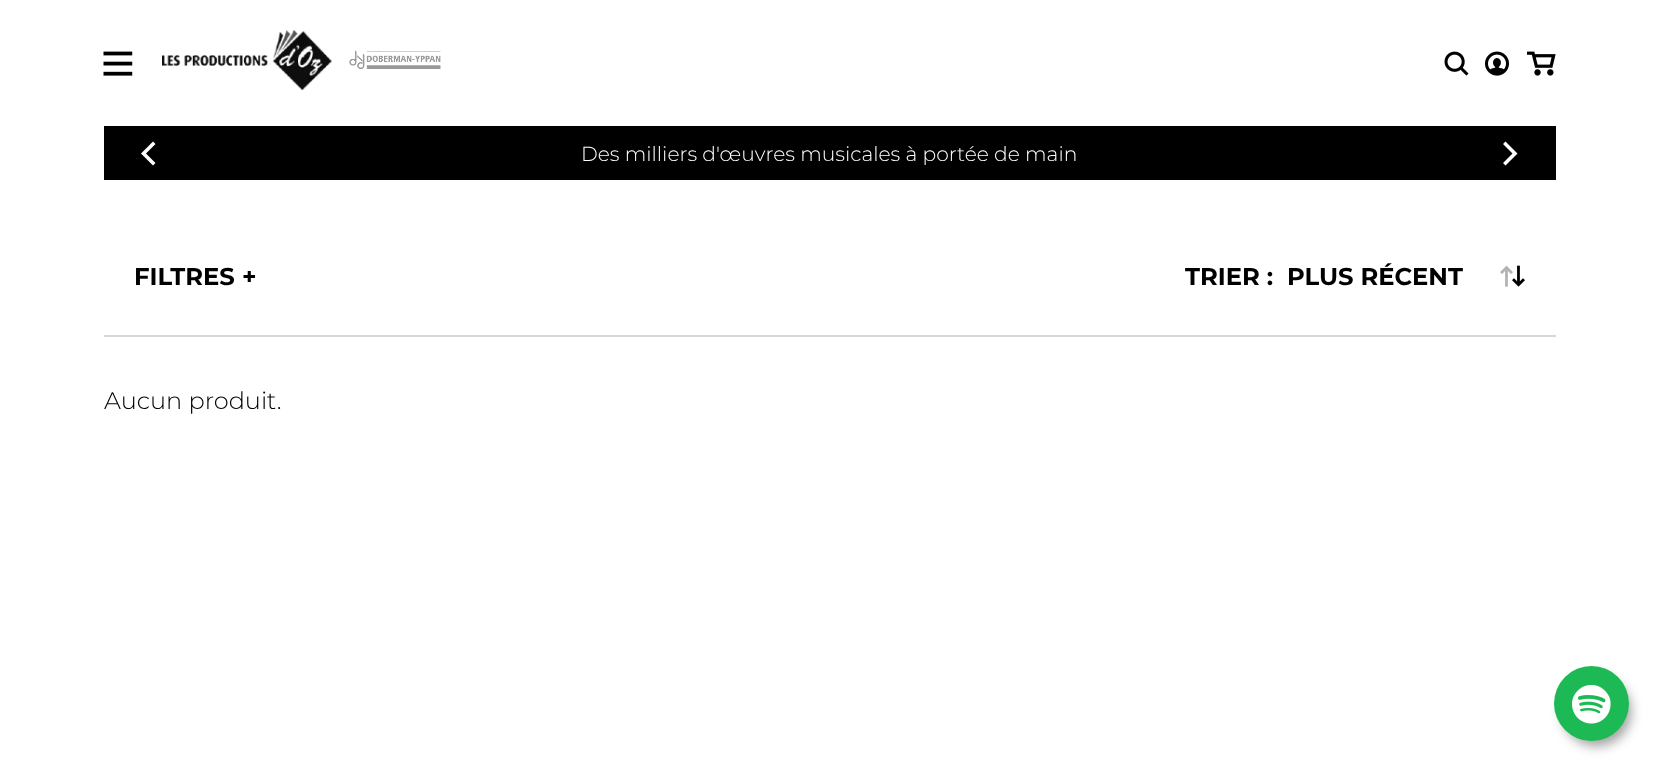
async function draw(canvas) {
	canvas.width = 1658;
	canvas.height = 770;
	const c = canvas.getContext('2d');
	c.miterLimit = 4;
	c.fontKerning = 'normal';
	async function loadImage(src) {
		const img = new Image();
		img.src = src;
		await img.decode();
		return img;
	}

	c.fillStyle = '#fff';
	c.fillRect(0, 0, 1658, 770);
	c.drawImage(await loadImage('img1.png'), 103, 51, 30, 25);
	c.drawImage(await loadImage('img2.png'), 162, 30, 170, 60);
	c.drawImage(await loadImage('img3.png'), 349, 50, 92, 19);
	c.drawImage(await loadImage('img4.png'), 1444, 51, 25, 25);
	c.drawImage(await loadImage('img5.png'), 1485, 51, 24, 25);
	c.drawImage(await loadImage('img6.png'), 1527, 51, 29, 25);
	c.fillStyle = '#000';
	c.fillRect(104, 126, 1452, 54);
	c.fillStyle = '#fff';
	c.beginPath();
	c.moveTo(153, 165.5);
	c.lineTo(141, 153.5);
	c.lineTo(153, 141.5);
	c.lineTo(155.5, 144);
	c.lineTo(146, 153.5);
	c.lineTo(155.5, 163);
	c.closePath();
	c.fill();
	c.font = '300 20.25px Montserrat';
	c.fillText('Des milliers d\'œuvres musicales à portée de main', 581, 161);
	c.beginPath();
	c.moveTo(1505.5, 141.5);
	c.lineTo(1517.5, 153.5);
	c.lineTo(1505.5, 165.5);
	c.lineTo(1503, 163);
	c.lineTo(1512.5, 153.5);
	c.lineTo(1503, 144);
	c.closePath();
	c.fill();
	c.fillStyle = '#d8d8d8';
	c.fillRect(104, 335, 1452, 2);
	c.font = 'bold 24.25px Montserrat';
	c.fillStyle = '#000';
	for (const [text, x, y] of [
		['FILTRES', 134, 285],
		['+', 242, 285],
		['TRIER :', 1185, 285],
		['PLUS RÉCENT', 1287, 285],
	]) {
		c.fillText(text, x, y);
	}
	c.drawImage(await loadImage('img8.png'), 1512, 265, 13, 22);
	c.drawImage(await loadImage('img7.png'), 1500, 265, 13, 22);
	c.font = '300 24px Montserrat';
	c.fillText('Aucun produit.', 104, 409);
	c.fillStyle = '#00000061';
	c.filter = 'blur(6px)';
	c.beginPath();
	c.roundRect(1562, 677, 69, 69, 34.5);
	c.fill();
	c.filter = 'none';
	c.fillStyle = '#1db954';
	c.beginPath();
	c.arc(1591.5, 703.5, 37.5, 0, 2 * Math.PI);
	c.fill();
	c.drawImage(await loadImage('img9.png'), 1572, 684, 39, 40);
}

draw(document.querySelector('canvas'));
